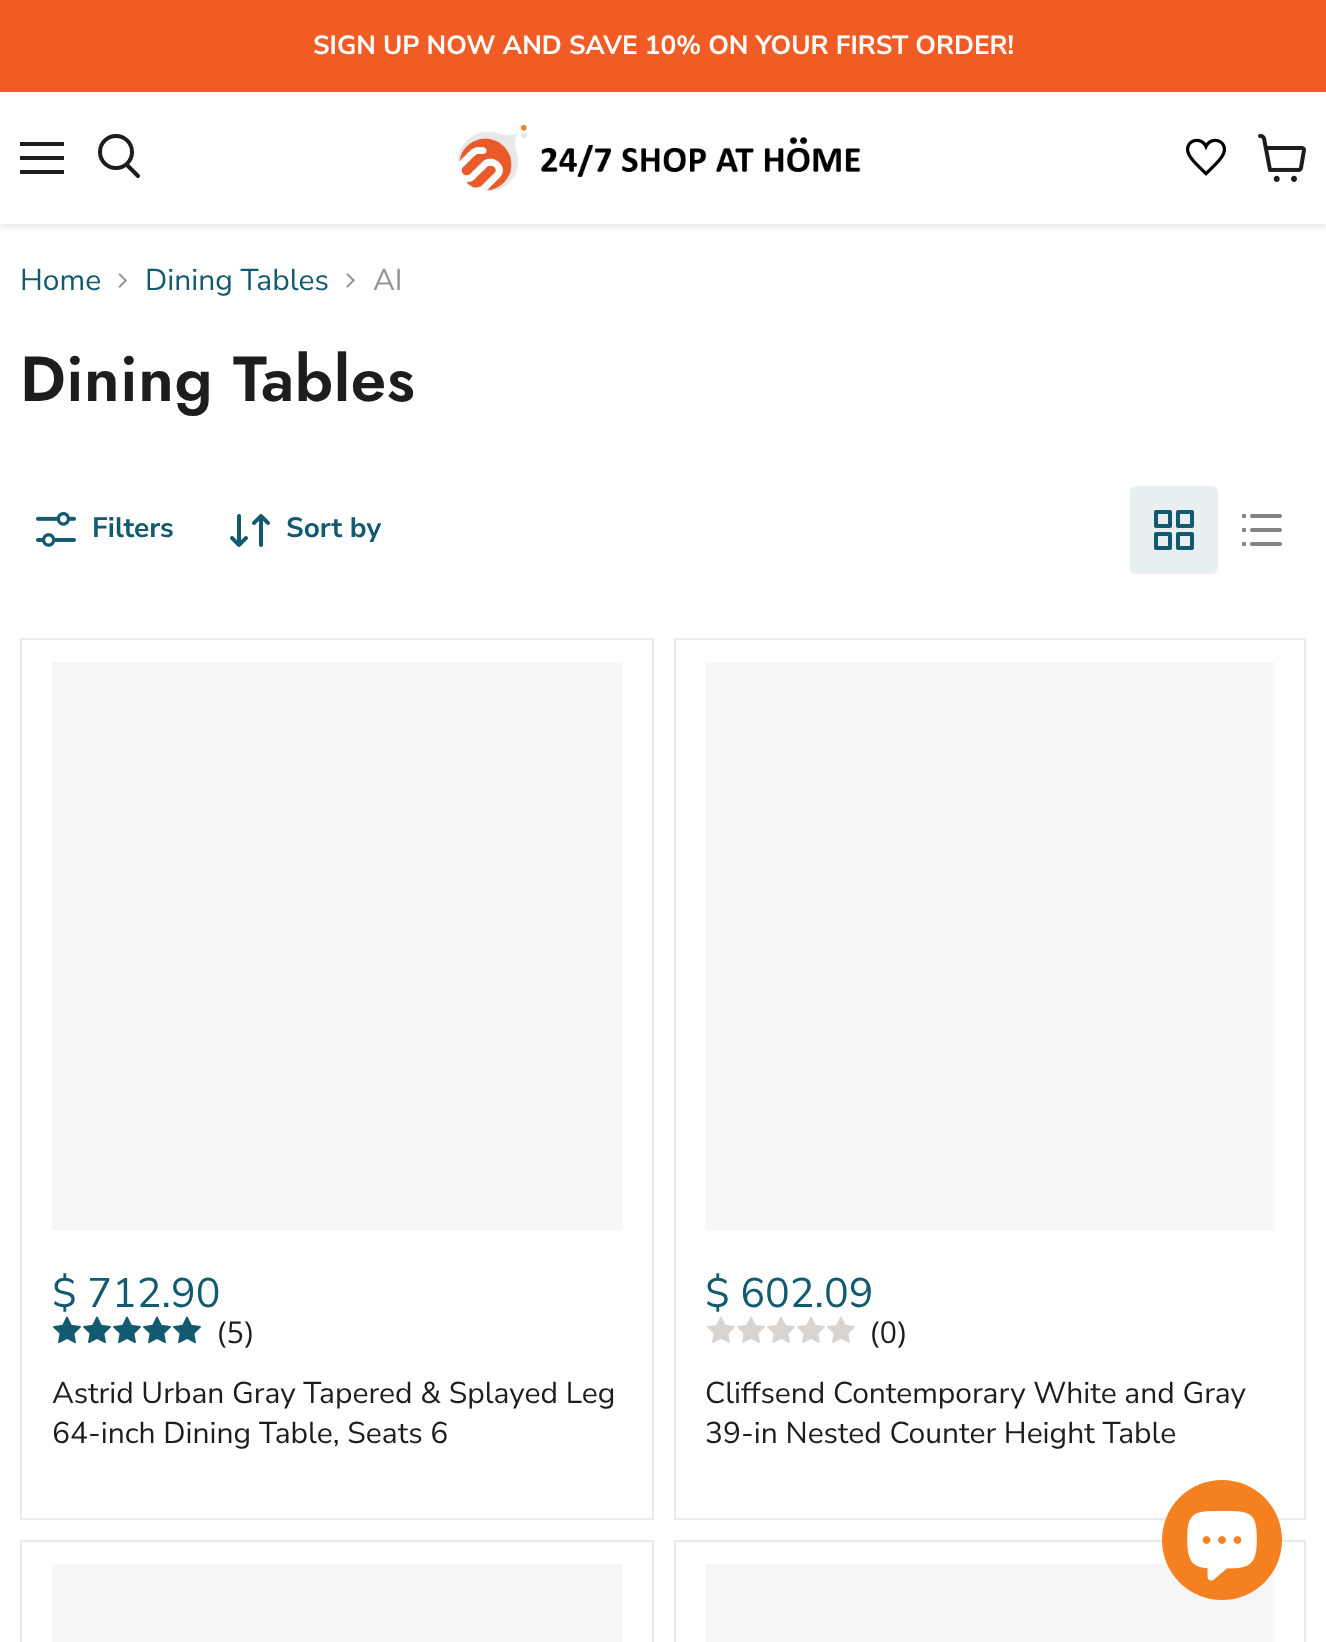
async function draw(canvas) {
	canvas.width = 1326;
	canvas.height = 1642;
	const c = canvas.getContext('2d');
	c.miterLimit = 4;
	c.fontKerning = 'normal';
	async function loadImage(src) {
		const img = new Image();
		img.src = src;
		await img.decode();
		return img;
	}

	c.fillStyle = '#fff';
	c.fillRect(0, 0, 1326, 1642);
	c.fillStyle = '#f15c24';
	c.fillRect(0, 0, 1326, 92);
	c.font = 'bold 26.25px Nunito Sans';
	c.fillStyle = '#fff';
	c.fillText('SIGN UP NOW AND SAVE 10% ON YOUR FIRST ORDER!', 313, 54);
	c.fillStyle = '#80808040';
	c.filter = 'blur(4px)';
	c.beginPath();
	c.rect(0, 94, 1326, 132);
	c.fill();
	c.filter = 'none';
	for (const [x, y, w, h, color] of [
		[0, 92, 1326, 132, '#fff'],
		[20, 142, 44, 4, '#1d1d1d'],
		[20, 156, 44, 4, '#1d1d1d'],
		[20, 170, 44, 4, '#1d1d1d'],
	]) {
		c.fillStyle = color;
		c.fillRect(x, y, w, h);
	}
	c.beginPath();
	c.moveTo(138, 176);
	c.lineTo(127, 165);
	c.strokeStyle = '#1d1d1d';
	c.lineWidth = 4;
	c.lineCap = 'round';
	c.stroke();
	c.beginPath();
	c.arc(116, 152, 16, 0, 2 * Math.PI);
	c.stroke();
	c.drawImage(await loadImage('img1.png'), 457, 124, 404, 68);
	c.drawImage(await loadImage('img2.png'), 1186, 138, 40, 38);
	c.drawImage(await loadImage('img3.png'), 1258, 134, 48, 48);
	c.font = '30px Nunito Sans';
	c.fillStyle = '#115a70';
	c.fillText('Home', 20, 290);
	c.drawImage(await loadImage('img4.png'), 118, 273, 9, 15);
	c.fillText('Dining Tables', 145, 290);
	c.drawImage(await loadImage('img5.png'), 346, 273, 9, 15);
	c.fillStyle = '#949494';
	c.fillText('AI', 373, 290);
	c.letterSpacing = '0.6px';
	c.font = '600 63.75px Jost';
	c.fillStyle = '#1d1d1d';
	c.fillText('Dining Tables', 20, 401);
	c.drawImage(await loadImage('img6.png'), 36, 512, 40, 35);
	c.letterSpacing = '0px';
	c.font = 'bold 28px Nunito Sans';
	c.fillStyle = '#115a70';
	c.fillText('Filters', 92, 537);
	c.drawImage(await loadImage('img7.png'), 230, 514, 40, 33);
	c.fillText('Sort by', 286, 537);
	c.fillStyle = '#e7eff1';
	c.beginPath();
	c.roundRect(1130, 486, 88, 88, 6);
	c.fill();
	c.drawImage(await loadImage('img8.png'), 1154, 510, 40, 40);
	c.drawImage(await loadImage('img9.png'), 1242, 514, 40, 32);
	c.strokeStyle = '#ebebeb';
	c.lineWidth = 2;
	c.strokeRect(21, 639, 632, 880);
	c.fillStyle = '#f6f6f6';
	c.fillRect(52, 662, 570, 568);
	c.font = '41.25px Nunito Sans';
	c.fillStyle = '#115a70';
	c.fillText('$ 712.90', 52, 1307);
	c.drawImage(await loadImage('img10.png'), 53, 1316, 28, 27);
	c.drawImage(await loadImage('img10.png'), 83, 1316, 28, 27);
	c.drawImage(await loadImage('img10.png'), 113, 1316, 28, 27);
	c.drawImage(await loadImage('img10.png'), 143, 1316, 28, 27);
	c.drawImage(await loadImage('img10.png'), 173, 1316, 28, 27);
	c.drawImage(await loadImage('img11.png'), 53, 1316, 28, 28);
	c.drawImage(await loadImage('img11.png'), 83, 1316, 28, 28);
	c.drawImage(await loadImage('img11.png'), 113, 1316, 28, 28);
	c.drawImage(await loadImage('img11.png'), 143, 1316, 28, 28);
	c.drawImage(await loadImage('img11.png'), 173, 1316, 28, 28);
	c.font = '30px Open Sans';
	c.fillStyle = '#1d1d1d';
	c.fillText('(5)', 218, 1343);
	c.font = '30px Nunito Sans';
	c.fillText('Astrid Urban Gray Tapered & Splayed Leg', 52, 1403);
	c.fillText('64-inch Dining Table, Seats 6', 52, 1443);
	c.strokeRect(675, 639, 630, 880);
	c.fillStyle = '#f6f6f6';
	c.fillRect(706, 662, 568, 568);
	c.font = '41.25px Nunito Sans';
	c.fillStyle = '#115a70';
	c.fillText('$ 602.09', 705, 1307);
	c.drawImage(await loadImage('img10.png'), 707, 1316, 28, 27);
	c.drawImage(await loadImage('img10.png'), 737, 1316, 28, 27);
	c.drawImage(await loadImage('img10.png'), 767, 1316, 28, 27);
	c.drawImage(await loadImage('img10.png'), 797, 1316, 28, 27);
	c.drawImage(await loadImage('img10.png'), 827, 1316, 28, 27);
	c.font = '30px Open Sans';
	c.fillStyle = '#1d1d1d';
	c.fillText('(0)', 871, 1343);
	c.font = '30px Nunito Sans';
	c.fillText('Cliffsend Contemporary White and Gray', 705, 1403);
	c.fillText('39-in Nested Counter Height Table', 705, 1443);
	c.strokeRect(21, 1541, 632, 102);
	c.fillStyle = '#f6f6f6';
	c.fillRect(52, 1564, 570, 78);
	c.strokeRect(675, 1541, 630, 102);
	c.fillRect(706, 1564, 568, 78);
	c.fillStyle = '#f58020';
	c.beginPath();
	c.arc(1222, 1540, 60, 0, 2 * Math.PI);
	c.fill();
	c.drawImage(await loadImage('img12.png'), 1187, 1511, 70, 70);
}

draw(document.querySelector('canvas'));
